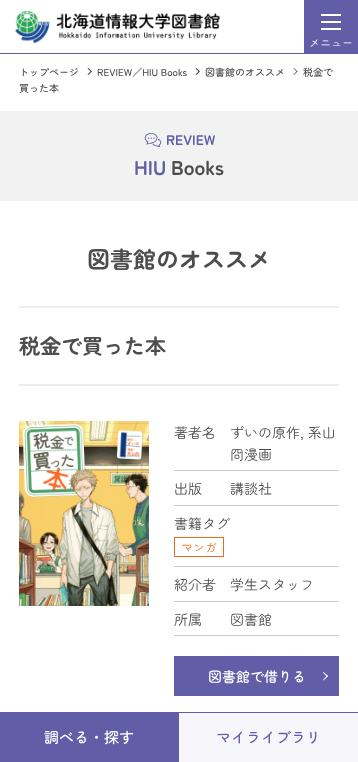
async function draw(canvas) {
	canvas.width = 358;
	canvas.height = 762;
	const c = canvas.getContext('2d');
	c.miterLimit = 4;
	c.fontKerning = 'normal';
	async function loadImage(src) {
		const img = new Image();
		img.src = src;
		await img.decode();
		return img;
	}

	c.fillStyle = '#fff';
	c.fillRect(0, 0, 358, 762);
	c.fillStyle = '#615ea7';
	c.fillRect(0, 53, 304, 1);
	c.drawImage(await loadImage('img1.png'), 15, 10, 205, 34);
	for (const [x, y, w, h, color] of [
		[304, 0, 54, 54, '#615ea7'],
		[321, 21, 20, 2, '#fff'],
		[321, 14, 20, 2, '#fff'],
		[321, 28, 20, 2, '#fff'],
	]) {
		c.fillStyle = color;
		c.fillRect(x, y, w, h);
	}
	c.font = '11px Zen Maru Gothic';
	c.fillText('メニュー', 309, 47);
	c.fillStyle = '#f7f7fb';
	c.fillRect(179, 713, 179, 49);
	c.fillStyle = '#615ea7';
	c.fillRect(179, 712, 179, 1);
	c.font = '500 15px Zen Maru Gothic';
	c.fillText('マイライブラリ', 216, 743);
	c.fillStyle = '#4d4d4d';
	c.beginPath();
	c.moveTo(294, 68);
	c.lineTo(297.5, 71.5);
	c.lineTo(297, 72);
	c.lineTo(293.5, 68.5);
	c.closePath();
	c.fill();
	c.beginPath();
	c.moveTo(297, 71);
	c.lineTo(297.5, 71.5);
	c.lineTo(294, 75);
	c.lineTo(293.5, 74.5);
	c.closePath();
	c.fill();
	c.font = '500 10px Zen Maru Gothic';
	for (const [text, x, y] of [
		['税金で', 303, 76],
		['買った本', 19, 92],
		['トップページ', 19, 76],
	]) {
		c.fillText(text, x, y);
	}
	c.beginPath();
	c.moveTo(88.5, 68);
	c.lineTo(92, 71.5);
	c.lineTo(91, 72);
	c.lineTo(87.5, 68.5);
	c.closePath();
	c.fill();
	c.beginPath();
	c.moveTo(91, 71);
	c.lineTo(92, 71.5);
	c.lineTo(88.5, 75);
	c.lineTo(87.5, 74.5);
	c.closePath();
	c.fill();
	c.fillText('REVIEW／HIU Books', 97, 76);
	c.beginPath();
	c.moveTo(196.5, 68);
	c.lineTo(200, 71.5);
	c.lineTo(199, 72);
	c.lineTo(195.5, 68.5);
	c.closePath();
	c.fill();
	c.beginPath();
	c.moveTo(199, 71);
	c.lineTo(200, 71.5);
	c.lineTo(196.5, 75);
	c.lineTo(195.5, 74.5);
	c.closePath();
	c.fill();
	c.fillText('図書館のオススメ', 205, 76);
	c.fillStyle = '#f2f2f2';
	c.fillRect(0, 111, 358, 90);
	c.drawImage(await loadImage('img2.png'), 144, 133, 18, 14);
	c.font = 'bold 14px Zen Maru Gothic';
	c.fillStyle = '#615ea7';
	c.fillText('REVIEW', 166, 145);
	c.font = 'bold 20px Zen Maru Gothic';
	c.fillText('HIU', 134, 175);
	c.fillStyle = '#4d4d4d';
	c.fillText('Books', 171, 175);
	c.font = 'bold 23px Zen Maru Gothic';
	c.fillText('図書館のオススメ', 87, 268);
	c.fillStyle = '#ededed';
	c.fillRect(19, 306, 320, 2);
	c.font = 'bold 21px Zen Maru Gothic';
	c.fillStyle = '#4d4d4d';
	c.fillText('税金で買った本', 19, 354);
	c.fillStyle = '#ededed';
	c.fillRect(19, 384, 320, 2);
	c.drawImage(await loadImage('img3.png'), 19, 421, 130, 185);
	c.fillStyle = '#ccc';
	c.fillRect(174, 470, 165, 1);
	c.font = '14px Zen Maru Gothic';
	c.fillStyle = '#4d4d4d';
	for (const [text, x, y] of [
		['著者名', 174, 438],
		['ずいの原作, 系山', 230, 438],
		['冏漫画', 230, 460],
	]) {
		c.fillText(text, x, y);
	}
	c.fillStyle = '#ccc';
	c.fillRect(174, 505, 165, 1);
	c.fillStyle = '#4d4d4d';
	c.fillText('出版', 174, 494);
	c.fillText('講談社', 230, 494);
	c.fillStyle = '#ccc';
	c.fillRect(174, 566, 165, 1);
	c.fillStyle = '#4d4d4d';
	c.fillText('書籍タグ', 174, 529);
	c.strokeStyle = '#ec6c1f';
	c.strokeRect(174.5, 537.5, 49, 19);
	c.font = '12px Zen Maru Gothic';
	c.fillStyle = '#ec6c1f';
	c.fillText('マンガ', 181, 552);
	c.fillStyle = '#ccc';
	c.fillRect(174, 601, 165, 1);
	c.font = '14px Zen Maru Gothic';
	c.fillStyle = '#4d4d4d';
	c.fillText('紹介者', 174, 590);
	c.fillText('学生スタッフ', 230, 590);
	c.fillStyle = '#ccc';
	c.fillRect(174, 635, 165, 1);
	c.fillStyle = '#4d4d4d';
	c.fillText('所属', 174, 625);
	c.fillText('図書館', 230, 625);
	c.fillStyle = '#615ea7';
	c.fillRect(174, 656, 165, 40);
	c.font = '500 14px Zen Maru Gothic';
	c.fillStyle = '#fff';
	c.fillText('図書館で借りる', 208, 682);
	c.beginPath();
	c.moveTo(323.5, 672);
	c.lineTo(328, 676);
	c.lineTo(327, 677);
	c.lineTo(323, 672.5);
	c.closePath();
	c.fill();
	c.beginPath();
	c.moveTo(327, 675.5);
	c.lineTo(328, 676);
	c.lineTo(323.5, 680.5);
	c.lineTo(323, 680);
	c.closePath();
	c.fill();
	c.fillStyle = '#615ea7';
	c.fillRect(0, 712, 179, 50);
	c.font = '500 15px Zen Maru Gothic';
	c.fillStyle = '#fff';
	c.fillText('調べる・探す', 44, 743);
}

draw(document.querySelector('canvas'));
